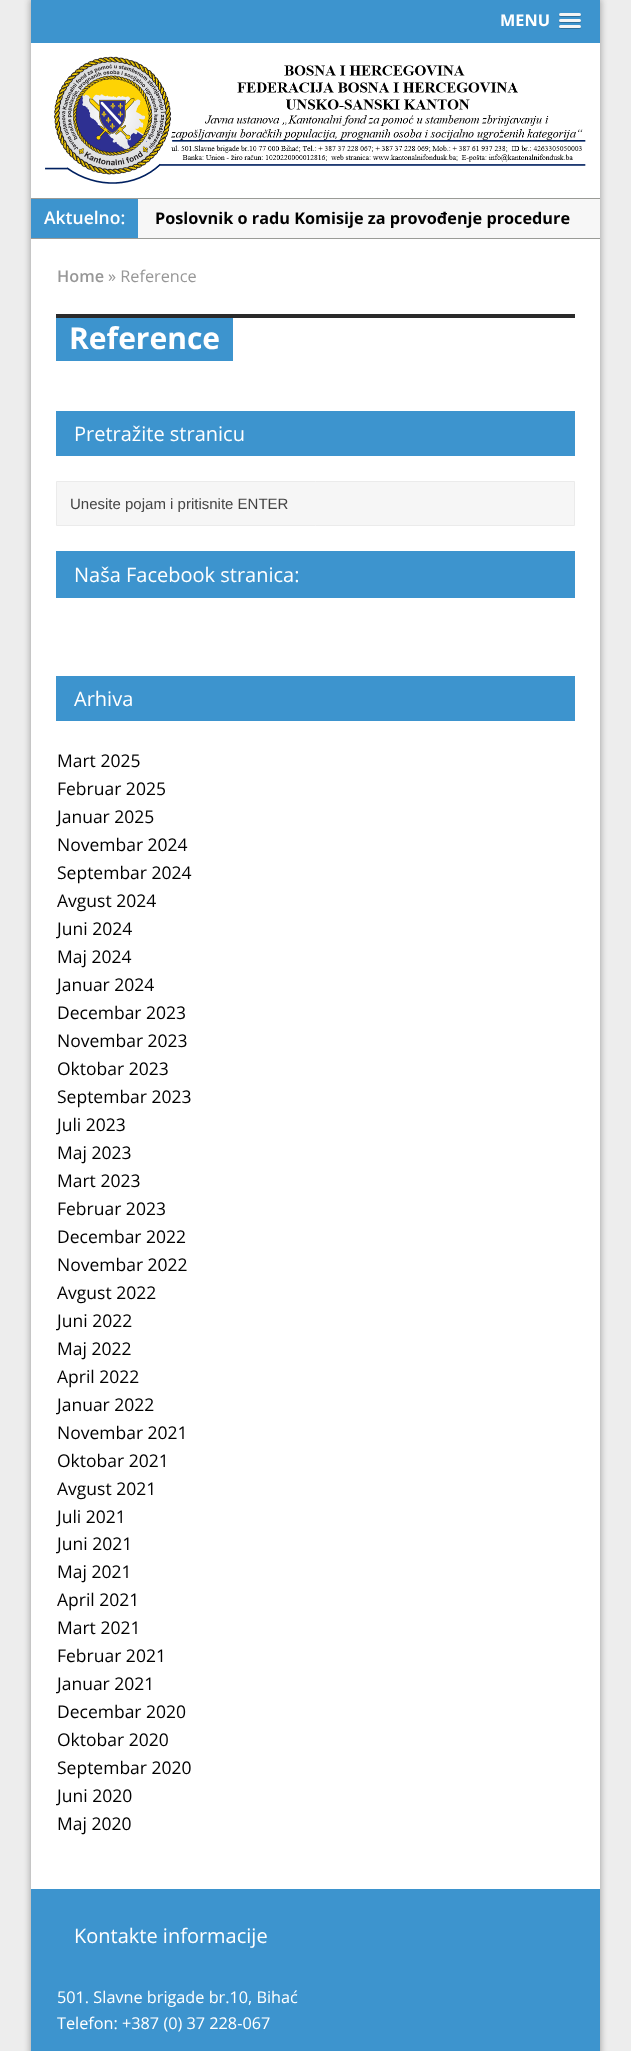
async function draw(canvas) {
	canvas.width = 631;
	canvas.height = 2051;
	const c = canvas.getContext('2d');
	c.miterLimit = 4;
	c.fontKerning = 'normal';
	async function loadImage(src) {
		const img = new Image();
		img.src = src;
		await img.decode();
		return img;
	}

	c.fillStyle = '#ededed';
	c.fillRect(0, 0, 631, 2051);
	c.fillStyle = '#a8a8a8';
	c.filter = 'blur(3px)';
	c.beginPath();
	c.rect(30, -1, 571, 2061);
	c.fill();
	c.filter = 'none';
	c.fillStyle = '#3d94ce';
	c.fillRect(31, 0, 569, 43);
	c.font = 'bold 16.25px Open Sans';
	c.fillStyle = '#fff';
	c.fillText('MENU', 500, 26);
	c.fillStyle = '#2e6f9b';
	c.beginPath();
	c.moveTo(559, 14.5);
	c.bezierCurveTo(557.5, 17.5, 563, 17, 563.5, 17);
	c.lineTo(576.5, 17);
	c.bezierCurveTo(577, 17, 582.5, 17.5, 581, 14.5);
	c.bezierCurveTo(580, 15, 560, 15, 559, 14.5);
	c.closePath();
	c.fill();
	c.fillStyle = '#f5f5f5';
	c.beginPath();
	c.roundRect(559, 13, 22, 3, 1.5);
	c.fill();
	c.fillStyle = '#2e6f9b';
	c.beginPath();
	c.moveTo(559, 21);
	c.bezierCurveTo(558, 23.5, 563, 23, 563.5, 23);
	c.lineTo(576.5, 23);
	c.bezierCurveTo(577, 23, 582, 23.5, 581, 21);
	c.bezierCurveTo(580, 21.5, 560, 21.5, 559, 21);
	c.closePath();
	c.fill();
	c.fillStyle = '#f5f5f5';
	c.beginPath();
	c.roundRect(559, 19, 22, 3, 1.5);
	c.fill();
	c.fillStyle = '#2e6f9b';
	c.beginPath();
	c.moveTo(559, 27);
	c.bezierCurveTo(558.5, 29.5, 563, 29, 563.5, 29);
	c.lineTo(576.5, 29);
	c.bezierCurveTo(577, 29, 581.5, 29.5, 581, 27);
	c.bezierCurveTo(580, 28, 560, 28, 559, 27);
	c.closePath();
	c.fill();
	c.fillStyle = '#f5f5f5';
	c.beginPath();
	c.roundRect(559, 25, 22, 3, 1.5);
	c.fill();
	c.fillStyle = '#fff';
	c.fillRect(31, 43, 569, 155);
	c.drawImage(await loadImage('img1.png'), 45, 56, 541, 128);
	for (const [x, y, w, h, color] of [
		[138, 199, 462, 39, '#f7f7f7'],
		[31, 198, 569, 1, '#9a9b97'],
		[31, 238, 569, 1, '#9a9b97'],
		[31, 199, 107, 39, '#3d94ce'],
	]) {
		c.fillStyle = color;
		c.fillRect(x, y, w, h);
	}
	c.font = '600 17.5px Open Sans';
	c.fillStyle = '#fff';
	c.fillText('Aktuelno:', 44, 224);
	c.font = 'bold 16.25px Open Sans';
	c.fillStyle = '#000';
	c.fillText('Poslovnik o radu Komisije za provođenje procedure', 155, 224);
	c.fillStyle = '#fff';
	c.fillRect(31, 239, 569, 1650);
	c.font = '600 16.25px Open Sans';
	c.fillStyle = '#979797';
	c.fillText('Home', 57, 282);
	c.font = '16.25px Open Sans';
	c.fillText('» Reference', 108, 282);
	c.fillStyle = '#2a2a2a';
	c.fillRect(56, 314, 519, 4);
	c.fillStyle = '#3d94ce';
	c.fillRect(56, 318, 177, 43);
	c.font = 'bold 30px Open Sans';
	c.fillStyle = '#fff';
	c.fillText('Reference', 69, 349);
	c.fillStyle = '#3d94ce';
	c.fillRect(56, 411, 519, 45);
	c.font = '20px Open Sans';
	c.fillStyle = '#fff';
	c.fillText('Pretražite stranicu', 74, 441);
	c.fillStyle = '#f6f6f6';
	c.beginPath();
	c.rect(56.5, 481.5, 518, 44);
	c.fill();
	c.strokeStyle = '#ebebeb';
	c.stroke();
	c.font = '15px Liberation Sans';
	c.fillStyle = '#444';
	c.fillText('Unesite pojam i pritisnite ENTER', 70, 509);
	c.fillStyle = '#3d94ce';
	c.fillRect(56, 551, 519, 47);
	c.font = '20px Open Sans';
	c.fillStyle = '#fff';
	c.fillText('Naša Facebook stranica:', 74, 582);
	c.fillStyle = '#3d94ce';
	c.fillRect(56, 676, 519, 45);
	c.fillStyle = '#fff';
	c.fillText('Arhiva', 74, 706);
	c.font = '17.5px Open Sans';
	c.fillStyle = '#000';
	c.fillText('Mart 2025', 57, 767);
	c.fillText('Februar 2025', 57, 795);
	c.save();
	c.beginPath();
	c.rect(56, 676, 519, 1163);
	c.clip();
	c.fillText('Januar 2025', 57, 823);
	c.restore();
	for (const [text, x, y] of [
		['Novembar 2024', 57, 851],
		['Septembar 2024', 57, 879],
		['Avgust 2024', 57, 907],
	]) {
		c.fillText(text, x, y);
	}
	c.save();
	c.beginPath();
	c.rect(56, 676, 519, 1163);
	c.clip();
	c.fillText('Juni 2024', 57, 935);
	c.restore();
	c.fillText('Maj 2024', 57, 963);
	c.save();
	c.beginPath();
	c.rect(56, 676, 519, 1163);
	c.clip();
	c.fillText('Januar 2024', 57, 991);
	c.restore();
	for (const [text, x, y] of [
		['Decembar 2023', 57, 1019],
		['Novembar 2023', 57, 1047],
		['Oktobar 2023', 57, 1075],
		['Septembar 2023', 57, 1103],
	]) {
		c.fillText(text, x, y);
	}
	c.save();
	c.beginPath();
	c.rect(56, 676, 519, 1163);
	c.clip();
	c.fillText('Juli 2023', 57, 1131);
	c.restore();
	for (const [text, x, y] of [
		['Maj 2023', 57, 1159],
		['Mart 2023', 57, 1187],
		['Februar 2023', 57, 1215],
		['Decembar 2022', 57, 1243],
		['Novembar 2022', 57, 1271],
		['Avgust 2022', 57, 1299],
	]) {
		c.fillText(text, x, y);
	}
	c.save();
	c.beginPath();
	c.rect(56, 676, 519, 1163);
	c.clip();
	c.fillText('Juni 2022', 57, 1327);
	c.restore();
	c.fillText('Maj 2022', 57, 1355);
	c.fillText('April 2022', 57, 1383);
	c.save();
	c.beginPath();
	c.rect(56, 676, 519, 1163);
	c.clip();
	c.fillText('Januar 2022', 57, 1411);
	c.restore();
	for (const [text, x, y] of [
		['Novembar 2021', 57, 1439],
		['Oktobar 2021', 57, 1467],
		['Avgust 2021', 57, 1495],
	]) {
		c.fillText(text, x, y);
	}
	c.save();
	c.beginPath();
	c.rect(56, 676, 519, 1163);
	c.clip();
	c.fillText('Juli 2021', 57, 1523);
	c.fillText('Juni 2021', 57, 1550);
	c.restore();
	for (const [text, x, y] of [
		['Maj 2021', 57, 1578],
		['April 2021', 57, 1606],
		['Mart 2021', 57, 1634],
		['Februar 2021', 57, 1662],
	]) {
		c.fillText(text, x, y);
	}
	c.save();
	c.beginPath();
	c.rect(56, 676, 519, 1163);
	c.clip();
	c.fillText('Januar 2021', 57, 1690);
	c.restore();
	for (const [text, x, y] of [
		['Decembar 2020', 57, 1718],
		['Oktobar 2020', 57, 1746],
		['Septembar 2020', 57, 1774],
	]) {
		c.fillText(text, x, y);
	}
	c.save();
	c.beginPath();
	c.rect(56, 676, 519, 1163);
	c.clip();
	c.fillText('Juni 2020', 57, 1802);
	c.restore();
	c.fillText('Maj 2020', 57, 1830);
	c.fillStyle = '#3d94ce';
	c.fillRect(31, 1889, 569, 162);
	c.font = '20px Open Sans';
	c.fillStyle = '#fff';
	c.fillText('Kontakte informacije', 74, 1943);
	c.font = '16.25px Open Sans';
	c.fillText('501. Slavne brigade br.10, Bihać', 57, 2003);
	c.fillText('Telefon: +387 (0) 37 228-067', 57, 2029);
}

draw(document.querySelector('canvas'));
